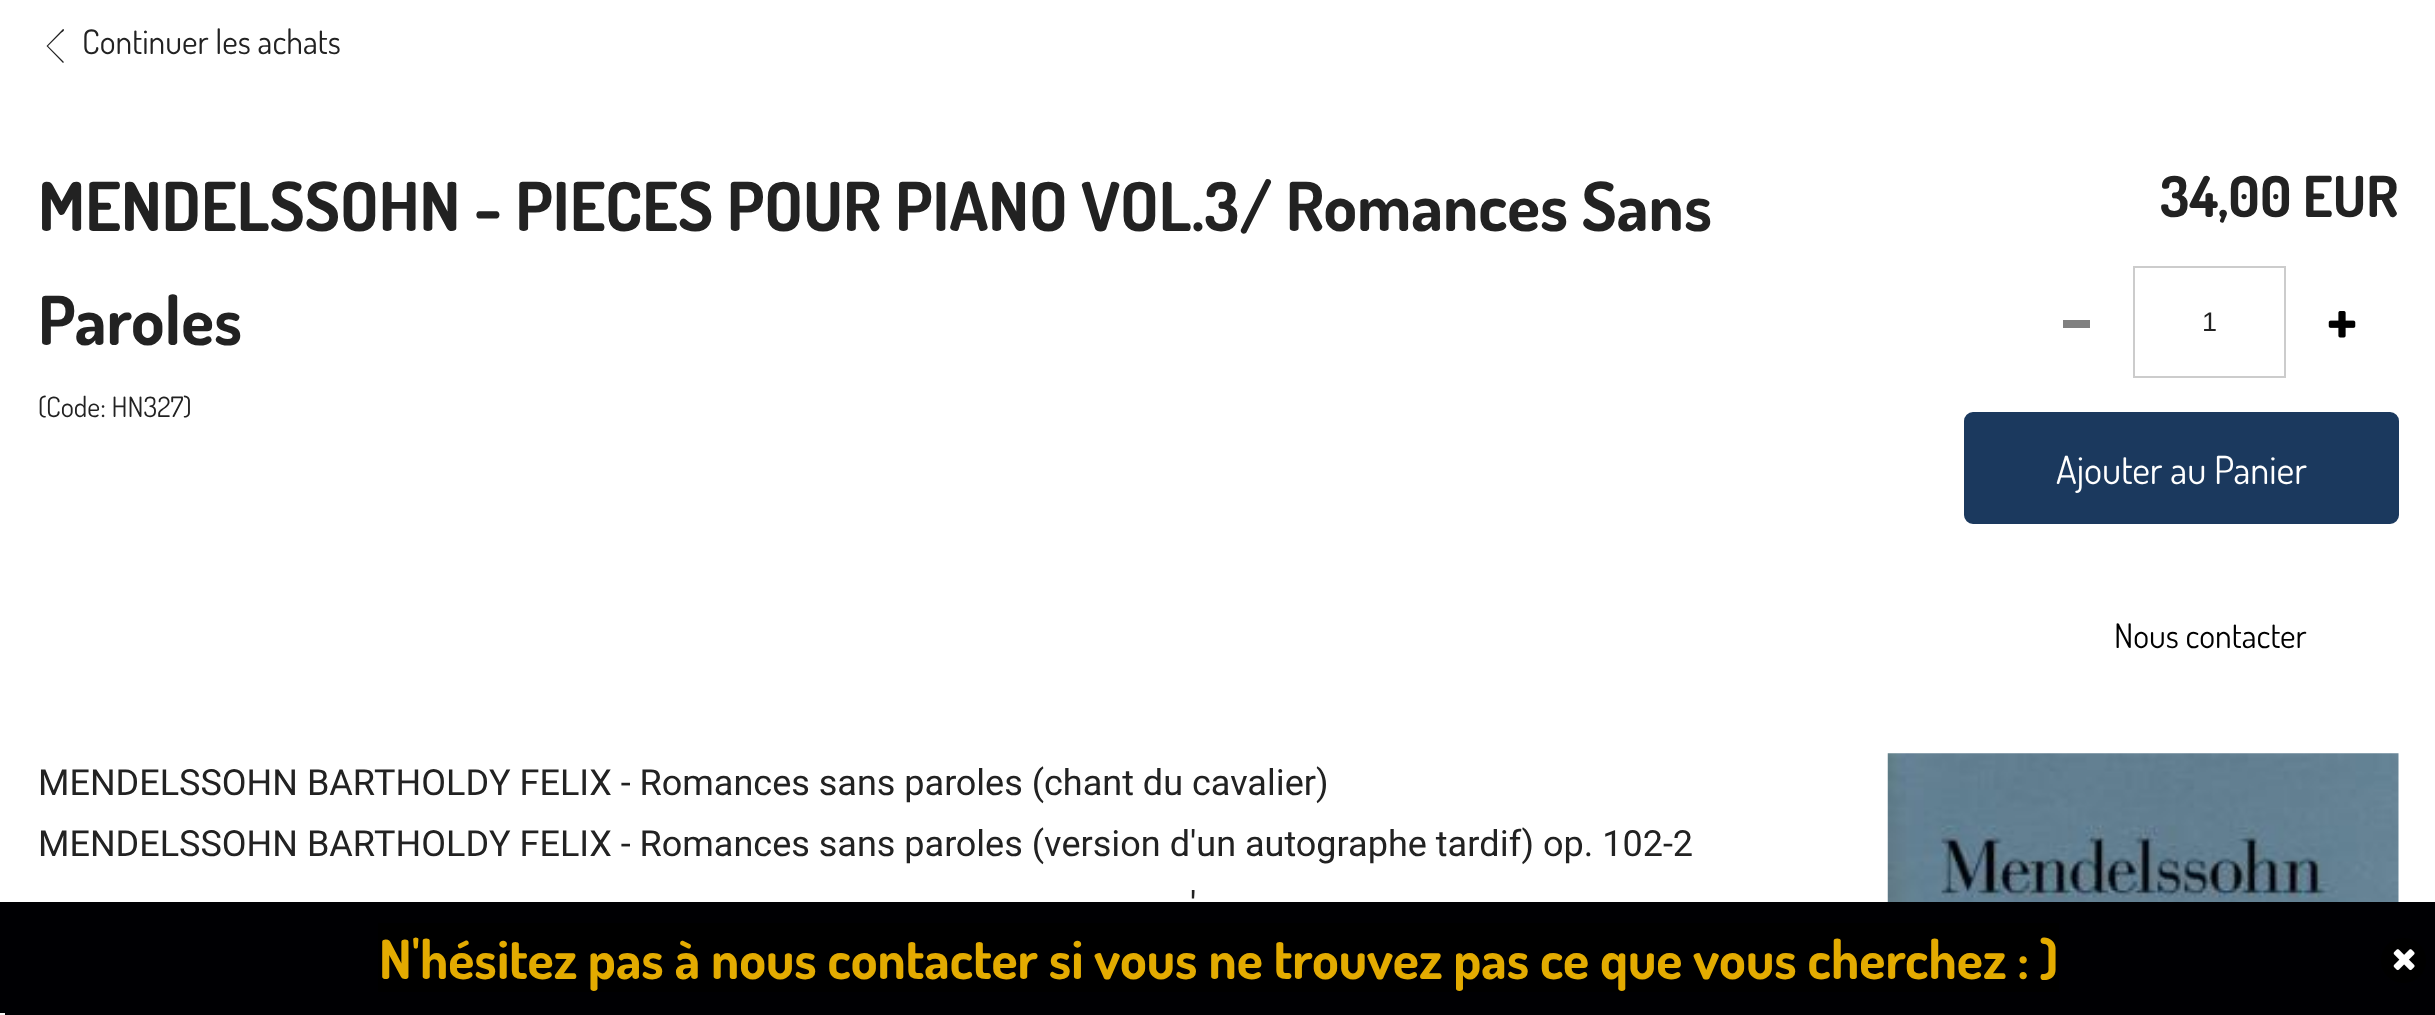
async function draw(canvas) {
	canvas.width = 2435;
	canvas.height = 1015;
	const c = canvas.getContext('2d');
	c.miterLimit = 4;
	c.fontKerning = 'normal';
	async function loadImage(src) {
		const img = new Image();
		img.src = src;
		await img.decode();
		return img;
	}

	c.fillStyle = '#fff';
	c.fillRect(0, 0, 2435, 1015);
	c.fillStyle = '#222';
	c.beginPath();
	c.moveTo(63.5, 61.5);
	c.lineTo(48, 46);
	c.lineTo(61, 33);
	c.bezierCurveTo(62, 32, 64.5, 31, 64, 29.5);
	c.lineTo(63, 29);
	c.lineTo(46.5, 46);
	c.lineTo(63, 63);
	c.bezierCurveTo(63.5, 63, 64, 62, 63.5, 61.5);
	c.closePath();
	c.fill();
	c.font = '33.75px Dosis';
	c.fillText('Continuer les achats', 82, 54);
	c.font = 'bold 67.5px Dosis';
	c.fillText('MENDELSSOHN - PIECES POUR PIANO VOL.3/ Romances Sans', 38, 231);
	c.fillText('Paroles', 38, 345);
	c.font = '28px Dosis';
	c.fillText('(Code: HN327)', 38, 417);
	c.font = 'bold 56.5px Dosis';
	c.fillText('34,00 EUR', 2160, 217);
	c.fillStyle = '#808080';
	c.fillRect(2063, 320, 27, 8);
	c.strokeStyle = '#ccc';
	c.lineWidth = 2;
	c.strokeRect(2134, 267, 151, 110);
	c.font = '27px Liberation Sans';
	c.fillStyle = '#222';
	c.fillText('1', 2202, 331);
	c.drawImage(await loadImage('img1.png'), 2328, 311, 28, 27);
	c.fillStyle = '#1b395e';
	c.beginPath();
	c.roundRect(1965, 413, 433, 110, 8);
	c.fill();
	c.strokeStyle = '#1b395e';
	c.stroke();
	c.font = '38.5px Dosis';
	c.fillStyle = '#fff';
	c.fillText('Ajouter au Panier', 2056, 484);
	c.font = '33.75px Dosis';
	c.fillStyle = '#000';
	c.fillText('Nous contacter', 2114, 648);
	c.font = '36px Heebo';
	c.fillStyle = '#222';
	c.fillText('MENDELSSOHN BARTHOLDY FELIX - Romances sans paroles (chant du cavalier)', 38, 795);
	c.drawImage(await loadImage('img2.png'), 1887, 753, 512, 149);
	c.fillText('MENDELSSOHN BARTHOLDY FELIX - Romances sans paroles (version d\'un autographe tardif) op. 102-2', 38, 856);
	c.fillText('\'', 1190, 917);
	c.fillStyle = '#000003';
	c.fillRect(0, 902, 2435, 113);
	c.fillStyle = '#000';
	c.fillRect(378, 923, 1681, 69);
	c.font = 'bold 54px Dosis';
	c.fillStyle = '#e3ab00';
	c.fillText('N\'hésitez pas à nous contacter si vous ne trouvez pas ce que vous cherchez : )', 379, 979);
	c.fillStyle = '#000';
	c.beginPath();
	c.arc(2403.5, 960.5, 22.5, 0, 2 * Math.PI);
	c.fill();
	c.drawImage(await loadImage('img3.png'), 2393, 949, 22, 22);
	c.fillStyle = '#f5f5f5';
	c.fillRect(0, 1013, 5, 2);
}

draw(document.querySelector('canvas'));
